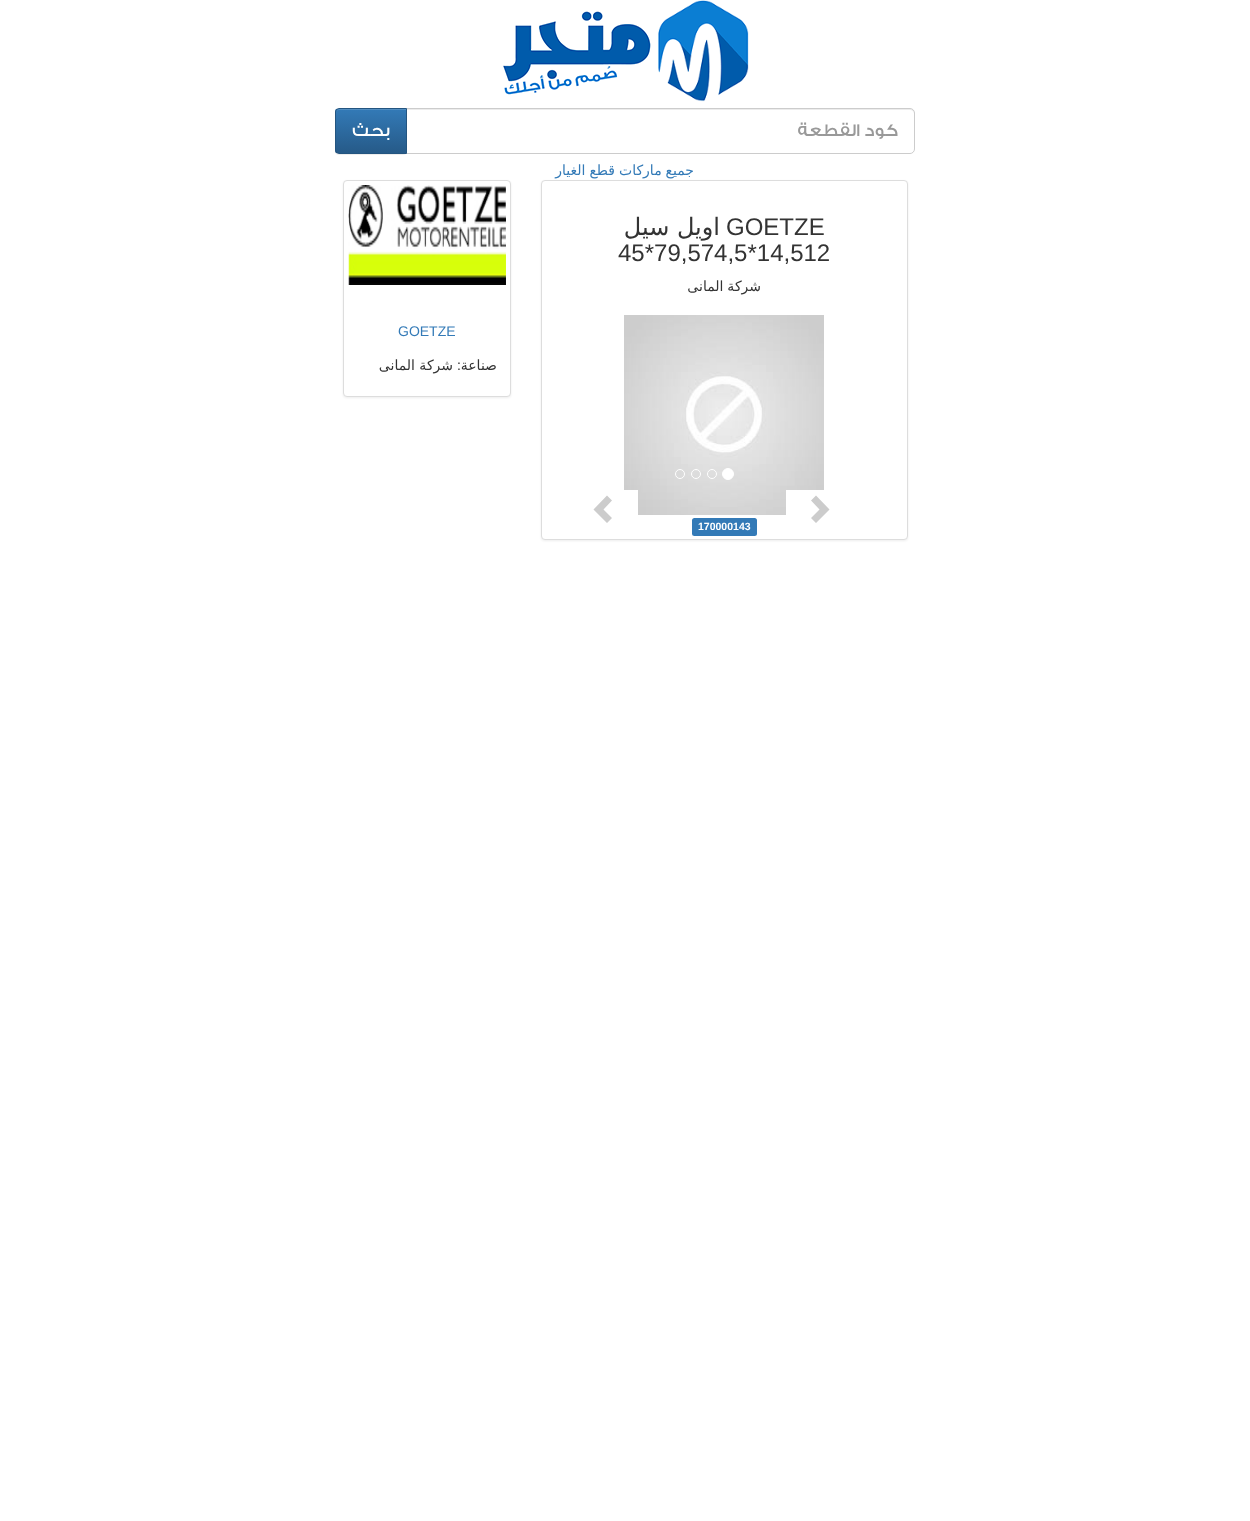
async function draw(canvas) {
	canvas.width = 1250;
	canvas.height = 1521;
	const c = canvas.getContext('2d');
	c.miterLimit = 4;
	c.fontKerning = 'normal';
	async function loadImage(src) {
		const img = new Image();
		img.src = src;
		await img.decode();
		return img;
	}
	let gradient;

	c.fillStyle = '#fff';
	c.fillRect(0, 0, 1250, 1521);
	c.drawImage(await loadImage('img1.png'), 503, 0, 246, 102);
	c.fillStyle = '#ececec';
	c.beginPath();
	c.moveTo(407, 110);
	c.lineTo(910, 110);
	c.bezierCurveTo(912, 110, 914, 112, 914, 114);
	c.bezierCurveTo(914, 111, 913, 109, 910, 109);
	c.lineTo(407, 109);
	c.closePath();
	c.fill();
	c.beginPath();
	c.roundRect(406.5, 108.5, 508, 45, [0, 4.5, 4.5, 0]);
	c.strokeStyle = '#ccc';
	c.stroke();
	c.direction = 'rtl';
	c.font = '500 18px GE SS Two';
	c.fillStyle = '#999';
	c.fillText('كود القطعة', 898, 136);
	c.fillStyle = '#00000012';
	c.filter = 'blur(0.5px)';
	c.beginPath();
	c.roundRect(335, 109, 72, 46, 4);
	c.fill();
	c.filter = 'none';
	c.save();
	c.beginPath();
	c.roundRect(335, 108, 72, 46, [4, 0, 0, 4]);
	c.clip();
	gradient = c.createLinearGradient(371, 109, 371, 153);
	gradient.addColorStop(0, '#337ab7');
	gradient.addColorStop(1, '#265a88');
	c.fillStyle = gradient;
	c.fillRect(335, 109, 71, 44);
	c.restore();
	c.fillStyle = '#528ec1';
	c.beginPath();
	c.moveTo(339, 110);
	c.lineTo(406, 110);
	c.lineTo(406, 109);
	c.lineTo(339, 109);
	c.bezierCurveTo(337, 109, 336, 110, 336, 112);
	c.lineTo(336, 113);
	c.bezierCurveTo(336, 111, 337, 110, 339, 110);
	c.closePath();
	c.fill();
	c.beginPath();
	c.roundRect(335.5, 108.5, 71, 45, [3.5, 0, 0, 3.5]);
	c.strokeStyle = '#245580';
	c.stroke();
	c.fillStyle = '#fff';
	c.fillText('بحث', 390, 136);
	c.wordSpacing = '-0.5px';
	c.font = '14px DejaVu Sans';
	c.fillStyle = '#337ab7';
	c.fillText('جميع ماركات قطع الغيار', 694, 175);
	c.fillStyle = '#00000012';
	c.filter = 'blur(1px)';
	c.beginPath();
	c.roundRect(541, 181, 367, 360, 4);
	c.fill();
	c.filter = 'none';
	c.fillStyle = '#fff';
	c.beginPath();
	c.roundRect(541.5, 180.5, 366, 359, 3.5);
	c.fill();
	c.strokeStyle = '#ddd';
	c.stroke();
	c.wordSpacing = '0px';
	c.direction = 'ltr';
	c.font = '24px Liberation Sans';
	c.fillStyle = '#333';
	c.fillText('GOETZE', 726, 235);
	c.direction = 'rtl';
	c.font = '24px DejaVu Sans';
	c.fillText('اويل سيل', 720, 235);
	c.direction = 'ltr';
	c.font = '24px Liberation Sans';
	c.fillText('45*79,574,5*14,512', 618, 261);
	c.wordSpacing = '-0.5px';
	c.direction = 'rtl';
	c.font = '14px DejaVu Sans';
	c.fillText('شركة المانى', 761, 291);
	c.drawImage(await loadImage('img2.png'), 624, 315, 200, 200);
	c.fillStyle = '#fff';
	c.beginPath();
	c.arc(728, 474, 5.5, 0, 2 * Math.PI);
	c.fill();
	c.strokeStyle = '#fff';
	c.stroke();
	c.beginPath();
	c.arc(712, 474, 4.5, 0, 2 * Math.PI);
	c.stroke();
	c.beginPath();
	c.arc(696, 474, 4.5, 0, 2 * Math.PI);
	c.stroke();
	c.beginPath();
	c.arc(680, 474, 4.5, 0, 2 * Math.PI);
	c.stroke();
	c.fillRect(786, 490, 38, 25);
	c.fillStyle = '#ccc';
	c.beginPath();
	c.moveTo(829.5, 509.5);
	c.lineTo(816, 523);
	c.lineTo(811, 518);
	c.lineTo(819.5, 509.5);
	c.lineTo(811, 500.5);
	c.lineTo(816, 495.5);
	c.closePath();
	c.fill();
	c.fillStyle = '#fff';
	c.fillRect(624, 490, 14, 25);
	c.fillStyle = '#ccc';
	c.beginPath();
	c.moveTo(612, 500.5);
	c.lineTo(603.5, 509.5);
	c.lineTo(612, 518);
	c.lineTo(607, 523);
	c.lineTo(593.5, 509.5);
	c.lineTo(607, 495.5);
	c.closePath();
	c.fill();
	c.fillStyle = '#337ab7';
	c.beginPath();
	c.roundRect(692, 518, 65, 18, 2.5);
	c.fill();
	c.wordSpacing = '0px';
	c.direction = 'ltr';
	c.font = 'bold 10.5px Liberation Sans';
	c.fillStyle = '#fff';
	c.fillText('170000143', 698, 530);
	c.fillStyle = '#00000012';
	c.filter = 'blur(1px)';
	c.beginPath();
	c.roundRect(343, 181, 168, 217, 4);
	c.fill();
	c.filter = 'none';
	c.fillStyle = '#fff';
	c.beginPath();
	c.roundRect(343.5, 180.5, 167, 216, 3.5);
	c.fill();
	c.strokeStyle = '#ddd';
	c.stroke();
	c.drawImage(await loadImage('img3.png'), 348, 185, 158, 100);
	c.font = '14px Liberation Sans';
	c.fillStyle = '#337ab7';
	c.fillText('GOETZE', 398, 336);
	c.direction = 'rtl';
	c.font = '14px DejaVu Sans';
	c.fillStyle = '#333';
	c.fillText('صناعة', 497, 370);
	c.font = '14px Liberation Sans';
	c.fillText(':', 461, 370);
	c.font = '14px DejaVu Sans';
	c.fillText('شركة المانى', 453, 370);
}

draw(document.querySelector('canvas'));
